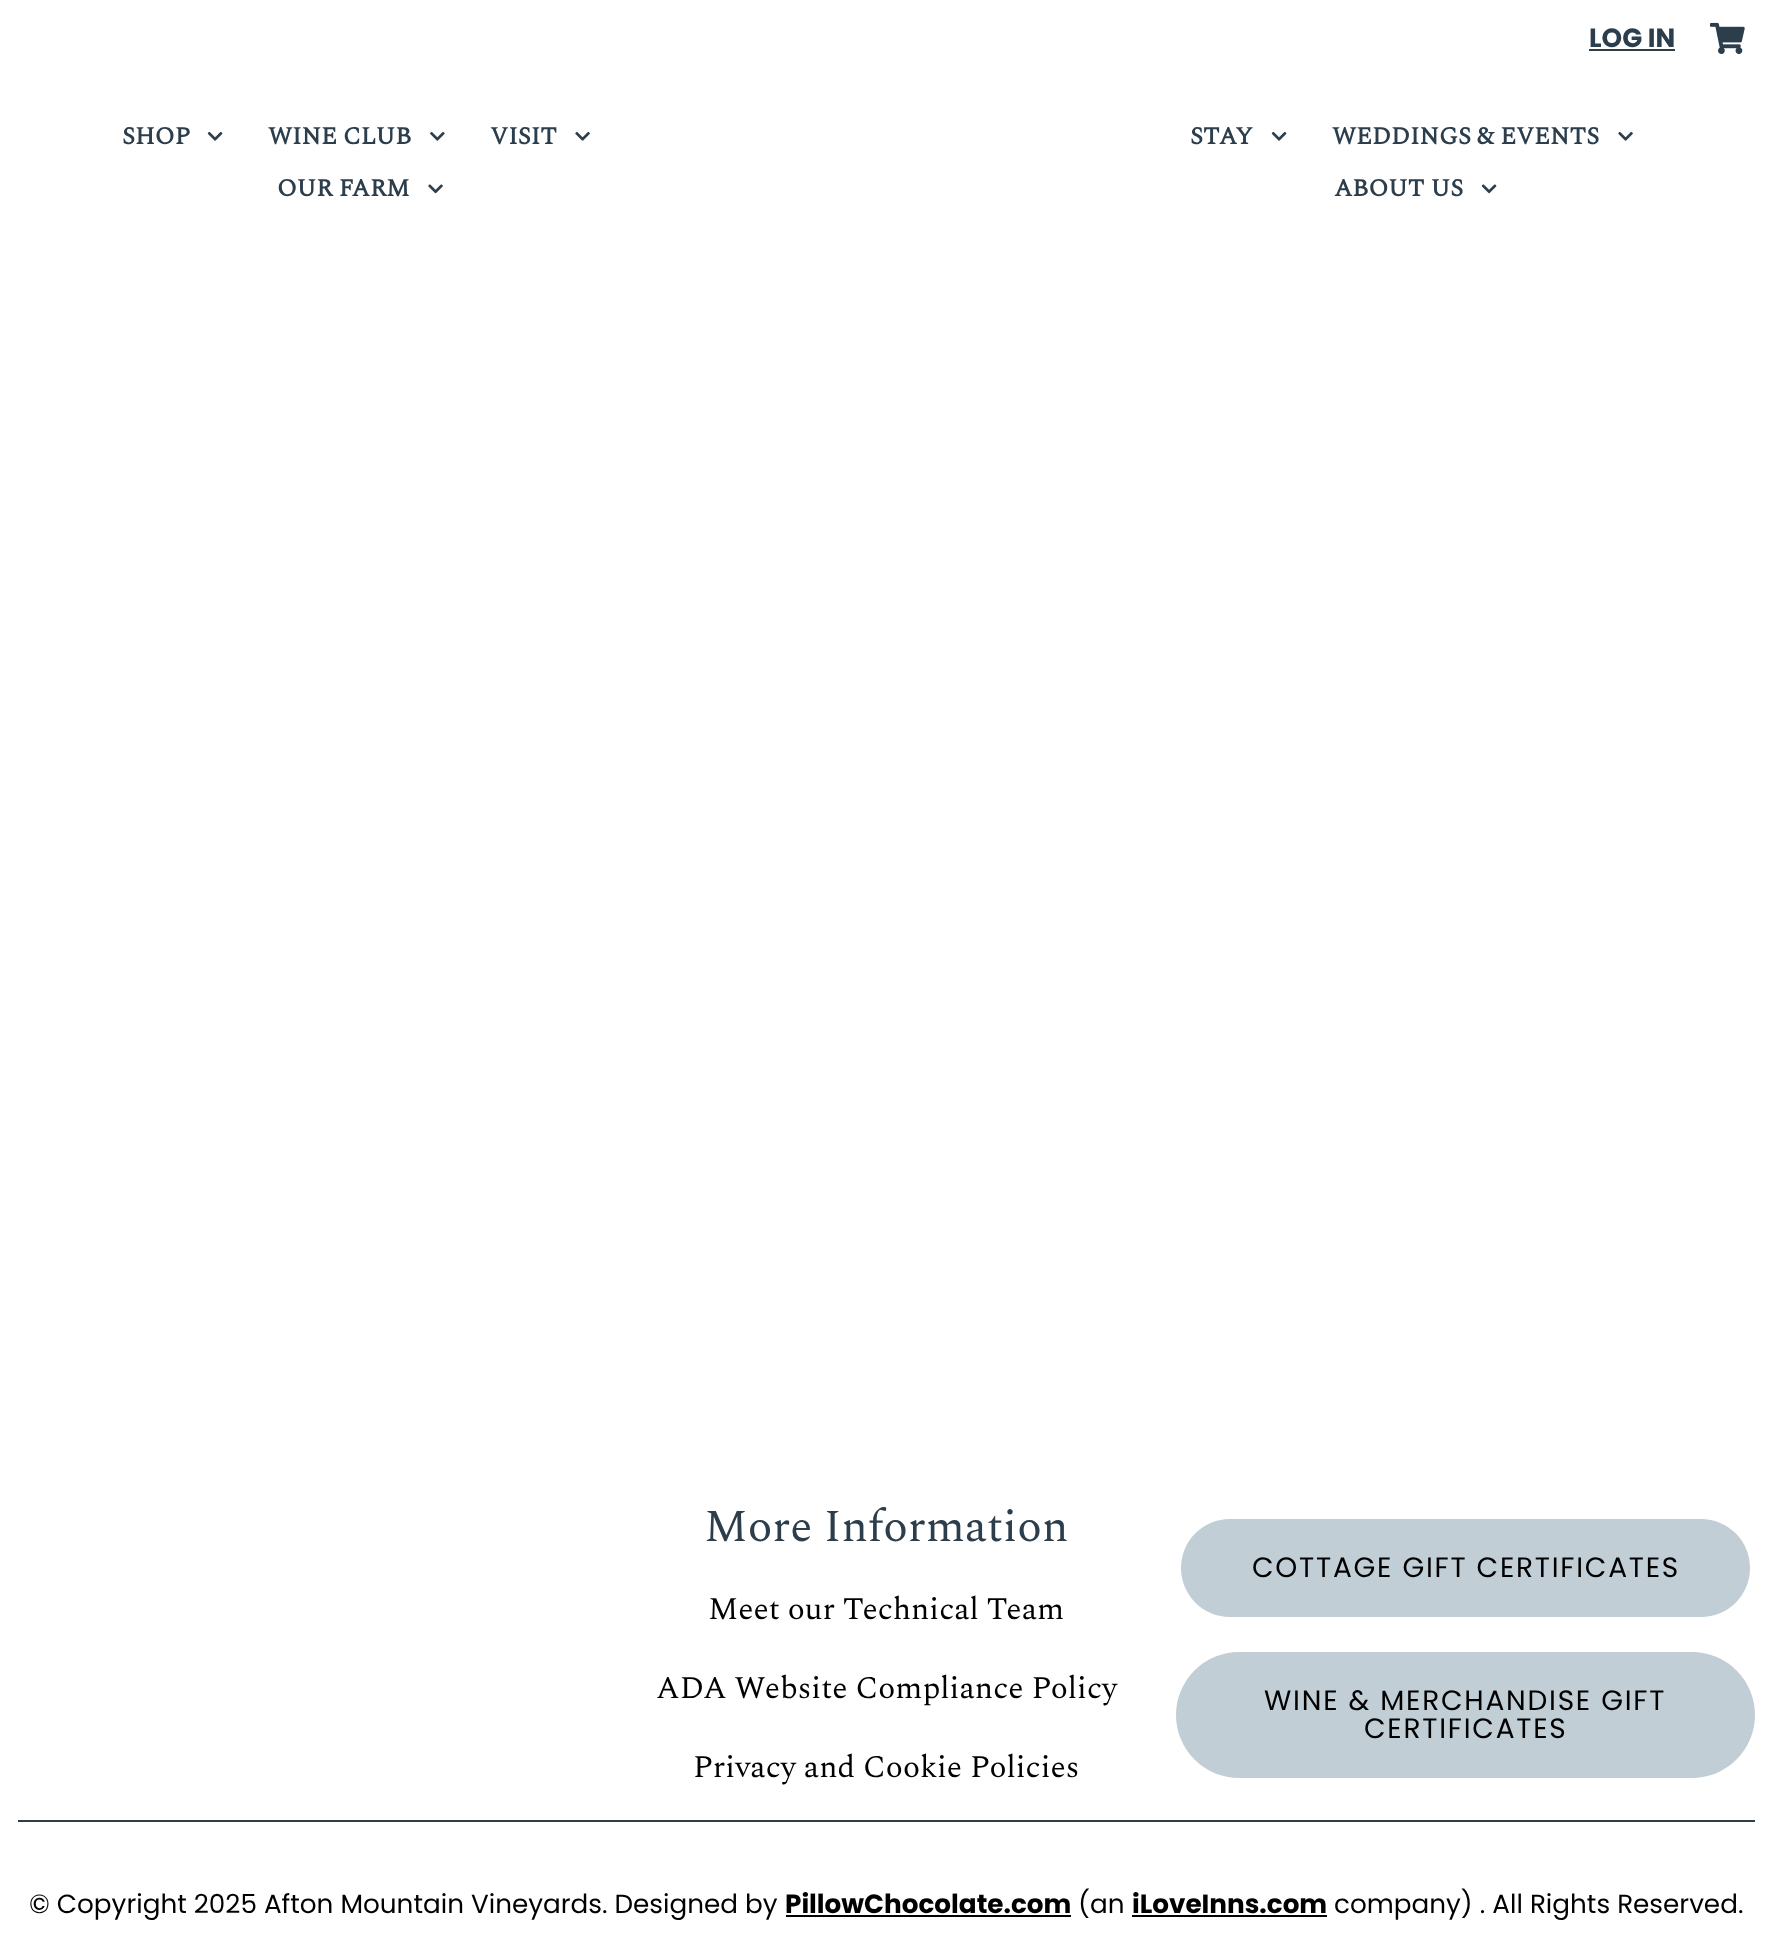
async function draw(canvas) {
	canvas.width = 1772;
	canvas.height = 1946;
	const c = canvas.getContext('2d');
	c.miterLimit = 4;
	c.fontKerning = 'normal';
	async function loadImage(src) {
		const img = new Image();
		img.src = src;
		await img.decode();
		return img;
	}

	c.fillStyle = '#fff';
	c.fillRect(0, 0, 1772, 1946);
	c.font = 'bold 26.25px Poppins';
	c.fillStyle = '#2c3d4c';
	c.fillText('LOG IN', 1589, 47);
	c.fillRect(1589, 49, 86, 2);
	c.drawImage(await loadImage('img1.png'), 1710, 22, 35, 32);
	c.font = 'bold 24.5px Spectral';
	c.fillText('SHOP', 122, 144);
	c.drawImage(await loadImage('img2.png'), 207, 131, 16, 10);
	c.fillText('WINE CLUB', 268, 144);
	c.drawImage(await loadImage('img3.png'), 430, 131, 15, 10);
	c.fillText('VISIT', 490, 144);
	c.drawImage(await loadImage('img4.png'), 575, 131, 15, 10);
	c.fillText('OUR FARM', 277, 196);
	c.drawImage(await loadImage('img5.png'), 428, 184, 15, 10);
	c.fillText('STAY', 1190, 144);
	c.drawImage(await loadImage('img2.png'), 1271, 131, 16, 10);
	c.fillText('WEDDINGS & EVENTS', 1332, 144);
	c.drawImage(await loadImage('img4.png'), 1618, 131, 15, 10);
	c.fillText('ABOUT US', 1334, 196);
	c.drawImage(await loadImage('img6.png'), 1481, 184, 16, 10);
	c.font = '45.5px Spectral';
	c.fillText('More Information', 704, 1541);
	c.font = '31.5px Spectral';
	c.fillStyle = '#000';
	for (const [text, x, y] of [
		['Meet our Technical Team', 708, 1619],
		['ADA Website Compliance Policy', 656, 1698],
		['Privacy and Cookie Policies', 693, 1777],
	]) {
		c.fillText(text, x, y);
	}
	c.fillStyle = '#c1ced5';
	c.beginPath();
	c.roundRect(1181, 1519, 569, 98, 49);
	c.fill();
	c.letterSpacing = '1.75px';
	c.font = '28px Poppins';
	c.fillStyle = '#000';
	c.fillText('COTTAGE GIFT CERTIFICATES', 1252, 1577);
	c.fillStyle = '#c1ced5';
	c.beginPath();
	c.roundRect(1176, 1652, 579, 126, 63);
	c.fill();
	c.fillStyle = '#000';
	c.fillText('WINE & MERCHANDISE GIFT', 1264, 1710);
	c.fillText('CERTIFICATES', 1364, 1738);
	c.fillStyle = '#2c3d4c';
	c.fillRect(18, 1820, 1737, 2);
	c.letterSpacing = '0px';
	c.font = '26.25px Poppins';
	c.fillStyle = '#000';
	c.fillText('© Copyright 2025 Afton Mountain Vineyards. Designed by', 29, 1913);
	c.font = 'bold 26.25px Poppins';
	c.fillText('PillowChocolate.com', 785, 1913);
	c.fillRect(786, 1915, 285, 2);
	c.font = '26.25px Poppins';
	c.fillText('(an', 1078, 1913);
	c.font = 'bold 26.25px Poppins';
	c.fillText('iLoveInns.com', 1132, 1913);
	c.fillRect(1132, 1915, 195, 2);
	c.font = '26.25px Poppins';
	c.fillText('company) . All Rights Reserved.', 1334, 1913);
}

draw(document.querySelector('canvas'));
